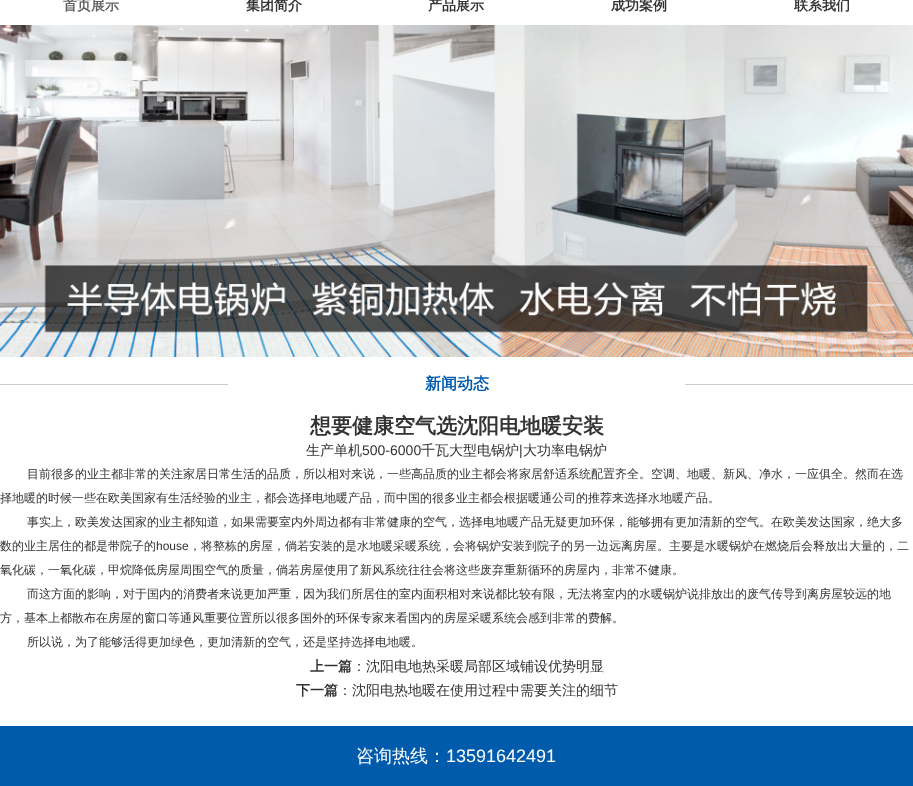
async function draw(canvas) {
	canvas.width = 913;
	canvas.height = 786;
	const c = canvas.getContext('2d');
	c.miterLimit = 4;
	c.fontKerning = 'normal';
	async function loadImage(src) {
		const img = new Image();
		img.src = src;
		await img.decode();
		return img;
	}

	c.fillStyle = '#fff';
	c.fillRect(0, 0, 913, 786);
	c.font = 'bold 14px WenQuanYi Zen Hei';
	c.fillStyle = '#616161';
	c.fillText('首页展示', 63, 10);
	c.fillStyle = '#333';
	for (const [text, x, y] of [
		['集团简介', 246, 10],
		['产品展示', 428, 10],
		['成功案例', 611, 10],
		['联系我们', 794, 10],
	]) {
		c.fillText(text, x, y);
	}
	c.drawImage(await loadImage('img1.png'), 0, 25, 913, 332);
	c.fillStyle = '#ccc';
	c.fillRect(0, 384, 228, 1);
	c.font = 'bold 16px WenQuanYi Zen Hei';
	c.fillStyle = '#005bac';
	c.fillText('新闻动态', 425, 389);
	c.fillStyle = '#ccc';
	c.fillRect(685, 384, 228, 1);
	c.font = 'bold 21px WenQuanYi Zen Hei';
	c.fillStyle = '#333';
	c.fillText('想要健康空气选沈阳电地暖安装', 310, 433);
	c.font = '500 14px WenQuanYi Zen Hei';
	c.fillText('生产单机', 306, 455);
	c.font = '14px Liberation Sans';
	c.fillText('500-6000', 362, 455);
	c.font = '500 14px WenQuanYi Zen Hei';
	c.fillText('千瓦大型电锅炉', 421, 455);
	c.font = '14px Liberation Sans';
	c.fillText('|', 519, 455);
	c.font = '500 14px WenQuanYi Zen Hei';
	c.fillText('大功率电锅炉', 523, 455);
	c.font = '500 12px WenQuanYi Zen Hei';
	for (const [text, x, y] of [
		['目前很多的业主都非常的关注家居日常生活的品质，所以相对来说，一些高品质的业主都会将家居舒适系统配置齐全。空调、地暖、新风、净水，一应俱全。然而在选', 27, 478],
		['择地暖的时候一些在欧美国家有生活经验的业主，都会选择电地暖产品，而中国的很多业主都会根据暖通公司的推荐来选择水地暖产品。', 0, 502],
		['事实上，欧美发达国家的业主都知道，如果需要室内外周边都有非常健康的空气，选择电地暖产品无疑更加环保，能够拥有更加清新的空气。在欧美发达国家，绝大多', 27, 526],
		['数的业主居住的都是带院子的', 0, 550],
	]) {
		c.fillText(text, x, y);
	}
	c.font = '12px Liberation Sans';
	c.fillText('house', 156, 550);
	c.font = '500 12px WenQuanYi Zen Hei';
	for (const [text, x, y] of [
		['，将整栋的房屋，倘若安装的是水地暖采暖系统，会将锅炉安装到院子的另一边远离房屋。主要是水暖锅炉在燃烧后会释放出大量的，二', 189, 550],
		['氧化碳，一氧化碳，甲烷降低房屋周围空气的质量，倘若房屋使用了新风系统往往会将这些废弃重新循环的房屋内，非常不健康。', 0, 574],
		['而这方面的影响，对于国内的消费者来说更加严重，因为我们所居住的室内面积相对来说都比较有限，无法将室内的水暖锅炉说排放出的废气传导到离房屋较远的地', 27, 598],
		['方，基本上都散布在房屋的窗口等通风重要位置所以很多国外的环保专家来看国内的房屋采暖系统会感到非常的费解。', 0, 622],
		['所以说，为了能够活得更加绿色，更加清新的空气，还是坚持选择电地暖。', 27, 646],
	]) {
		c.fillText(text, x, y);
	}
	c.font = 'bold 14px WenQuanYi Zen Hei';
	c.fillText('上一篇', 310, 671);
	c.font = '500 14px WenQuanYi Zen Hei';
	c.fillText('：沈阳电地热采暖局部区域铺设优势明显', 352, 671);
	c.font = 'bold 14px WenQuanYi Zen Hei';
	c.fillText('下一篇', 296, 695);
	c.font = '500 14px WenQuanYi Zen Hei';
	c.fillText('：沈阳电热地暖在使用过程中需要关注的细节', 338, 695);
	c.fillStyle = '#005bac';
	c.fillRect(0, 726, 913, 60);
	c.font = '500 18px WenQuanYi Zen Hei';
	c.fillStyle = '#fff';
	c.fillText('咨询热线：', 356, 762);
	c.font = '18px Liberation Sans';
	c.fillText('13591642491', 446, 762);
}

draw(document.querySelector('canvas'));
